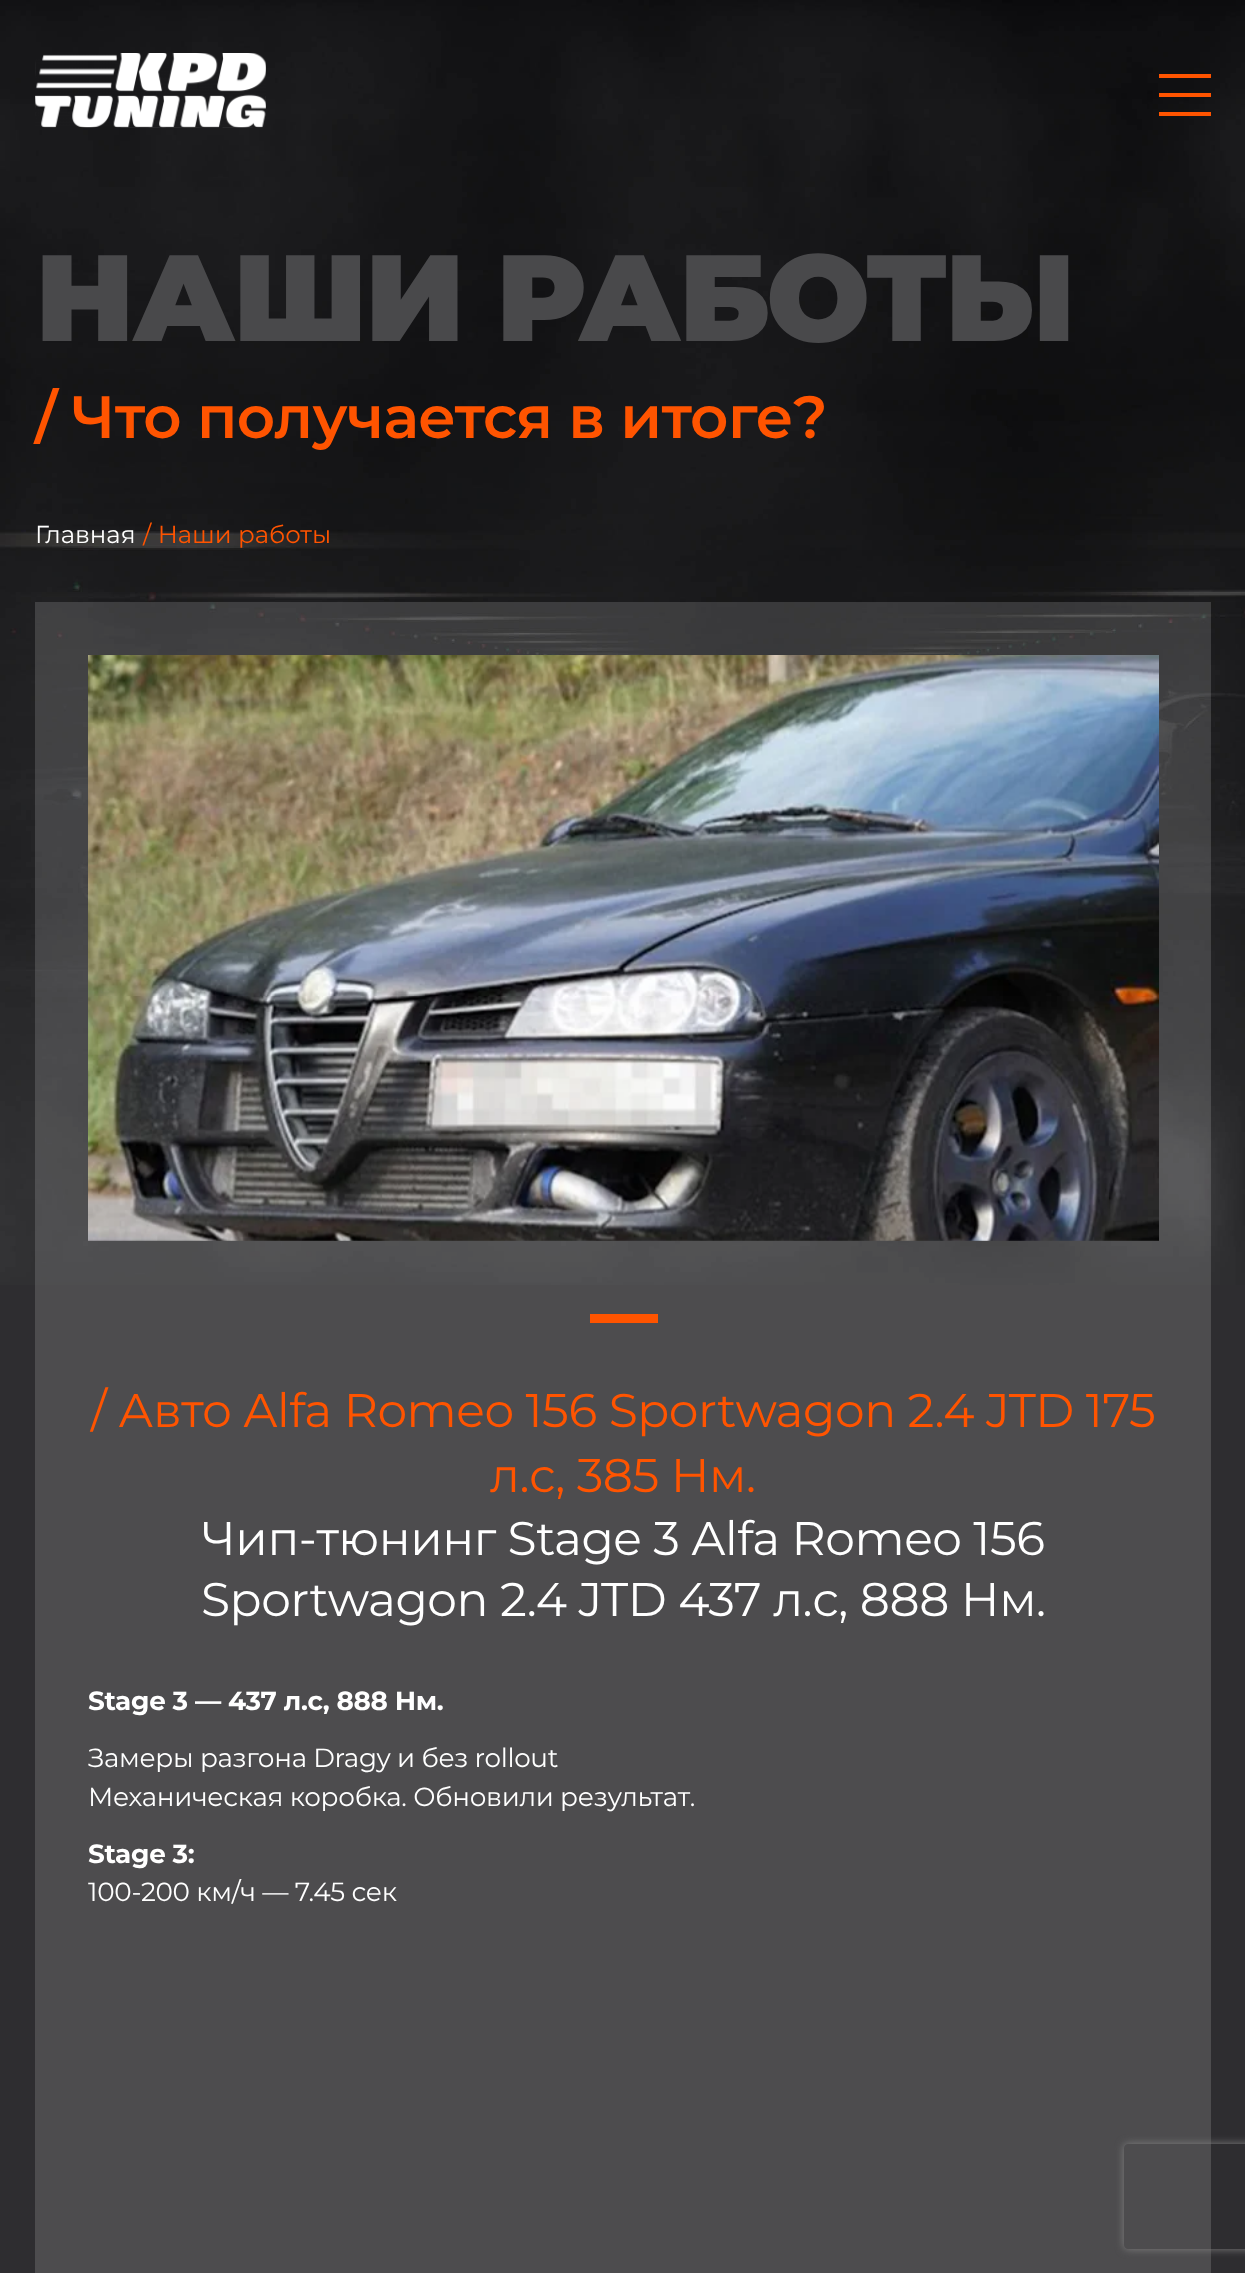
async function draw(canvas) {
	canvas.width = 1245;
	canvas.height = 2273;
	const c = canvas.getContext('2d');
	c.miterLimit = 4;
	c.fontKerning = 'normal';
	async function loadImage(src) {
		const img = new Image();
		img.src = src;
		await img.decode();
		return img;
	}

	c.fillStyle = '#2e2d30';
	c.fillRect(0, 0, 1245, 2273);
	c.drawImage(await loadImage('img1.png'), 0, 0, 1245, 1285);
	c.drawImage(await loadImage('img2.png'), 35, 53, 231, 75);
	for (const [x, y, w, h, color] of [
		[1159, 74, 52, 4, '#ff5400'],
		[1159, 93, 52, 4, '#ff5400'],
		[1159, 112, 52, 4, '#ff5400'],
	]) {
		c.fillStyle = color;
		c.fillRect(x, y, w, h);
	}
	c.letterSpacing = '-3px';
	c.font = '900 122.5px Montserrat';
	c.fillStyle = '#49494b';
	c.fillText('НАШИ РАБОТЫ', 35, 341);
	c.letterSpacing = '-0.6px';
	c.font = '600 59.5px Montserrat';
	c.fillStyle = '#ff5400';
	c.fillText('/ Что получается в итоге?', 35, 438);
	c.letterSpacing = '0px';
	c.font = '24.5px Montserrat';
	c.fillStyle = '#fff';
	c.fillText('Главная', 35, 543);
	c.fillStyle = '#ff5400';
	c.fillText('/ Наши работы', 143, 543);
	c.fillStyle = '#ffffff26';
	c.fillRect(35, 602, 1176, 1671);
	c.drawImage(await loadImage('img3.png'), 88, 655, 1071, 586);
	c.fillStyle = '#ff5400';
	c.fillRect(590, 1314, 68, 9);
	c.letterSpacing = '-0.45px';
	c.font = '47.25px Montserrat';
	c.fillText('/ Авто Alfa Romeo 156 Sportwagon 2.4 JTD 175', 91, 1427);
	c.fillText('л.с, 385 Нм.', 490, 1492);
	c.fillStyle = '#fff';
	c.fillText('Чип-тюнинг Stage 3 Alfa Romeo 156', 202, 1555);
	c.fillText('Sportwagon 2.4 JTD 437 л.с, 888 Нм.', 201, 1616);
	c.letterSpacing = '-0.3px';
	c.font = 'bold 26.25px Montserrat';
	c.fillText('Stage 3 — 437 л.с, 888 Нм.', 88, 1710);
	c.font = '26.25px Montserrat';
	c.fillText('Замеры разгона Dragy и без rollout', 88, 1767);
	c.fillText('Механическая коробка. Обновили результат.', 88, 1806);
	c.font = 'bold 26.25px Montserrat';
	c.fillText('Stage 3:', 88, 1863);
	c.font = '26.25px Montserrat';
	c.fillText('100-200 км/ч — 7.45 сек', 88, 1901);
	c.save();
	c.beginPath();
	c.moveTo(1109, 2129);
	c.lineTo(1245, 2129);
	c.lineTo(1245, 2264);
	c.lineTo(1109, 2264);
	c.closePath();
	c.moveTo(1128, 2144);
	c.lineTo(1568, 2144);
	c.bezierCurveTo(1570, 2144, 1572, 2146, 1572, 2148);
	c.lineTo(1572, 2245);
	c.bezierCurveTo(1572, 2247, 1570, 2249, 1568, 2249);
	c.lineTo(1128, 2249);
	c.bezierCurveTo(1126, 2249, 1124, 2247, 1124, 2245);
	c.lineTo(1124, 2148);
	c.bezierCurveTo(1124, 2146, 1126, 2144, 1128, 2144);
	c.closePath();
	c.clip('evenodd');
	c.fillStyle = '#808080';
	c.filter = 'blur(4.5px)';
	c.beginPath();
	c.roundRect(1124, 2144, 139, 105, 4);
	c.fill();
	c.filter = 'none';
	c.restore();
}

draw(document.querySelector('canvas'));
